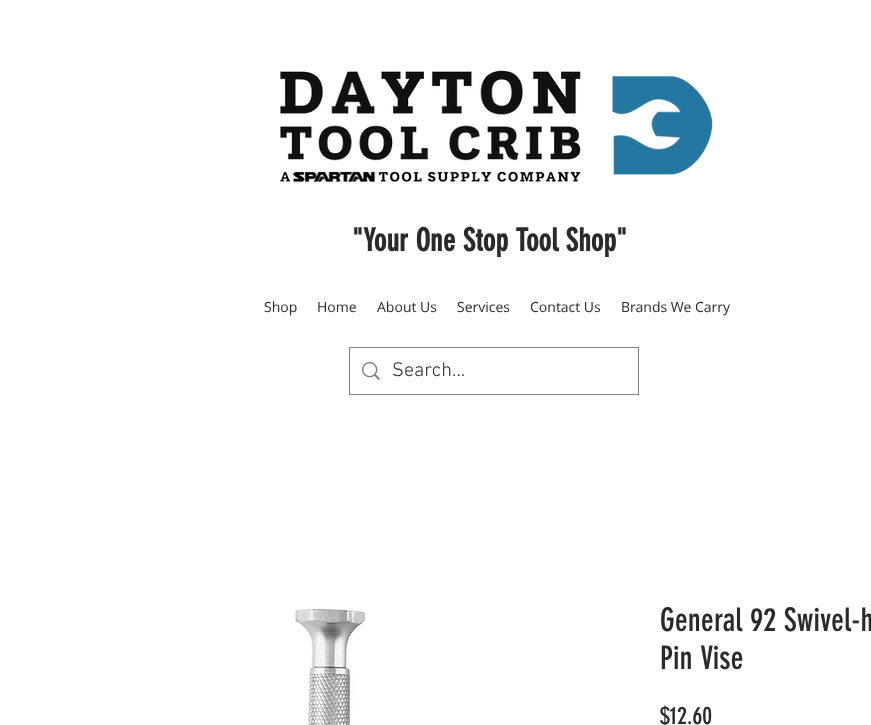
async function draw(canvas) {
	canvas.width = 871;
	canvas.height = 725;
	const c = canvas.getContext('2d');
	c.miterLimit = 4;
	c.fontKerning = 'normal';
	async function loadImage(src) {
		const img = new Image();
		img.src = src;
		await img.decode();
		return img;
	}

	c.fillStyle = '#fff';
	c.fillRect(0, 0, 871, 725);
	c.drawImage(await loadImage('img1.png'), 280, 70, 433, 112);
	c.font = 'bold 31px "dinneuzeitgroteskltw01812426"';
	c.fillStyle = '#2a2a2a';
	c.fillText('"Your One Stop Tool Shop"', 352, 251);
	c.font = '14px Open Sans';
	for (const [text, x, y] of [
		['Shop', 264, 312],
		['Home', 317, 312],
		['About Us', 377, 312],
		['Services', 457, 312],
		['Contact Us', 530, 312],
		['Brands We Carry', 621, 312],
	]) {
		c.fillText(text, x, y);
	}
	c.strokeStyle = '#7f7f7f';
	c.strokeRect(349.5, 347.5, 289, 47);
	c.drawImage(await loadImage('img2.png'), 362, 362, 18, 18);
	c.font = '300 20px "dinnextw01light"';
	c.fillText('Search...', 392, 376);
	c.drawImage(await loadImage('img3.png'), 293, 609, 73, 116);
	c.font = '32px "dinneuzeitgroteskltw01812426"';
	c.fillText('General 92 Swivel-h', 660, 631);
	c.fillText('Pin Vise', 660, 669);
	c.font = '24px "dinneuzeitgroteskltw01812426"';
	c.fillText('$12.60', 660, 724);
}

draw(document.querySelector('canvas'));
